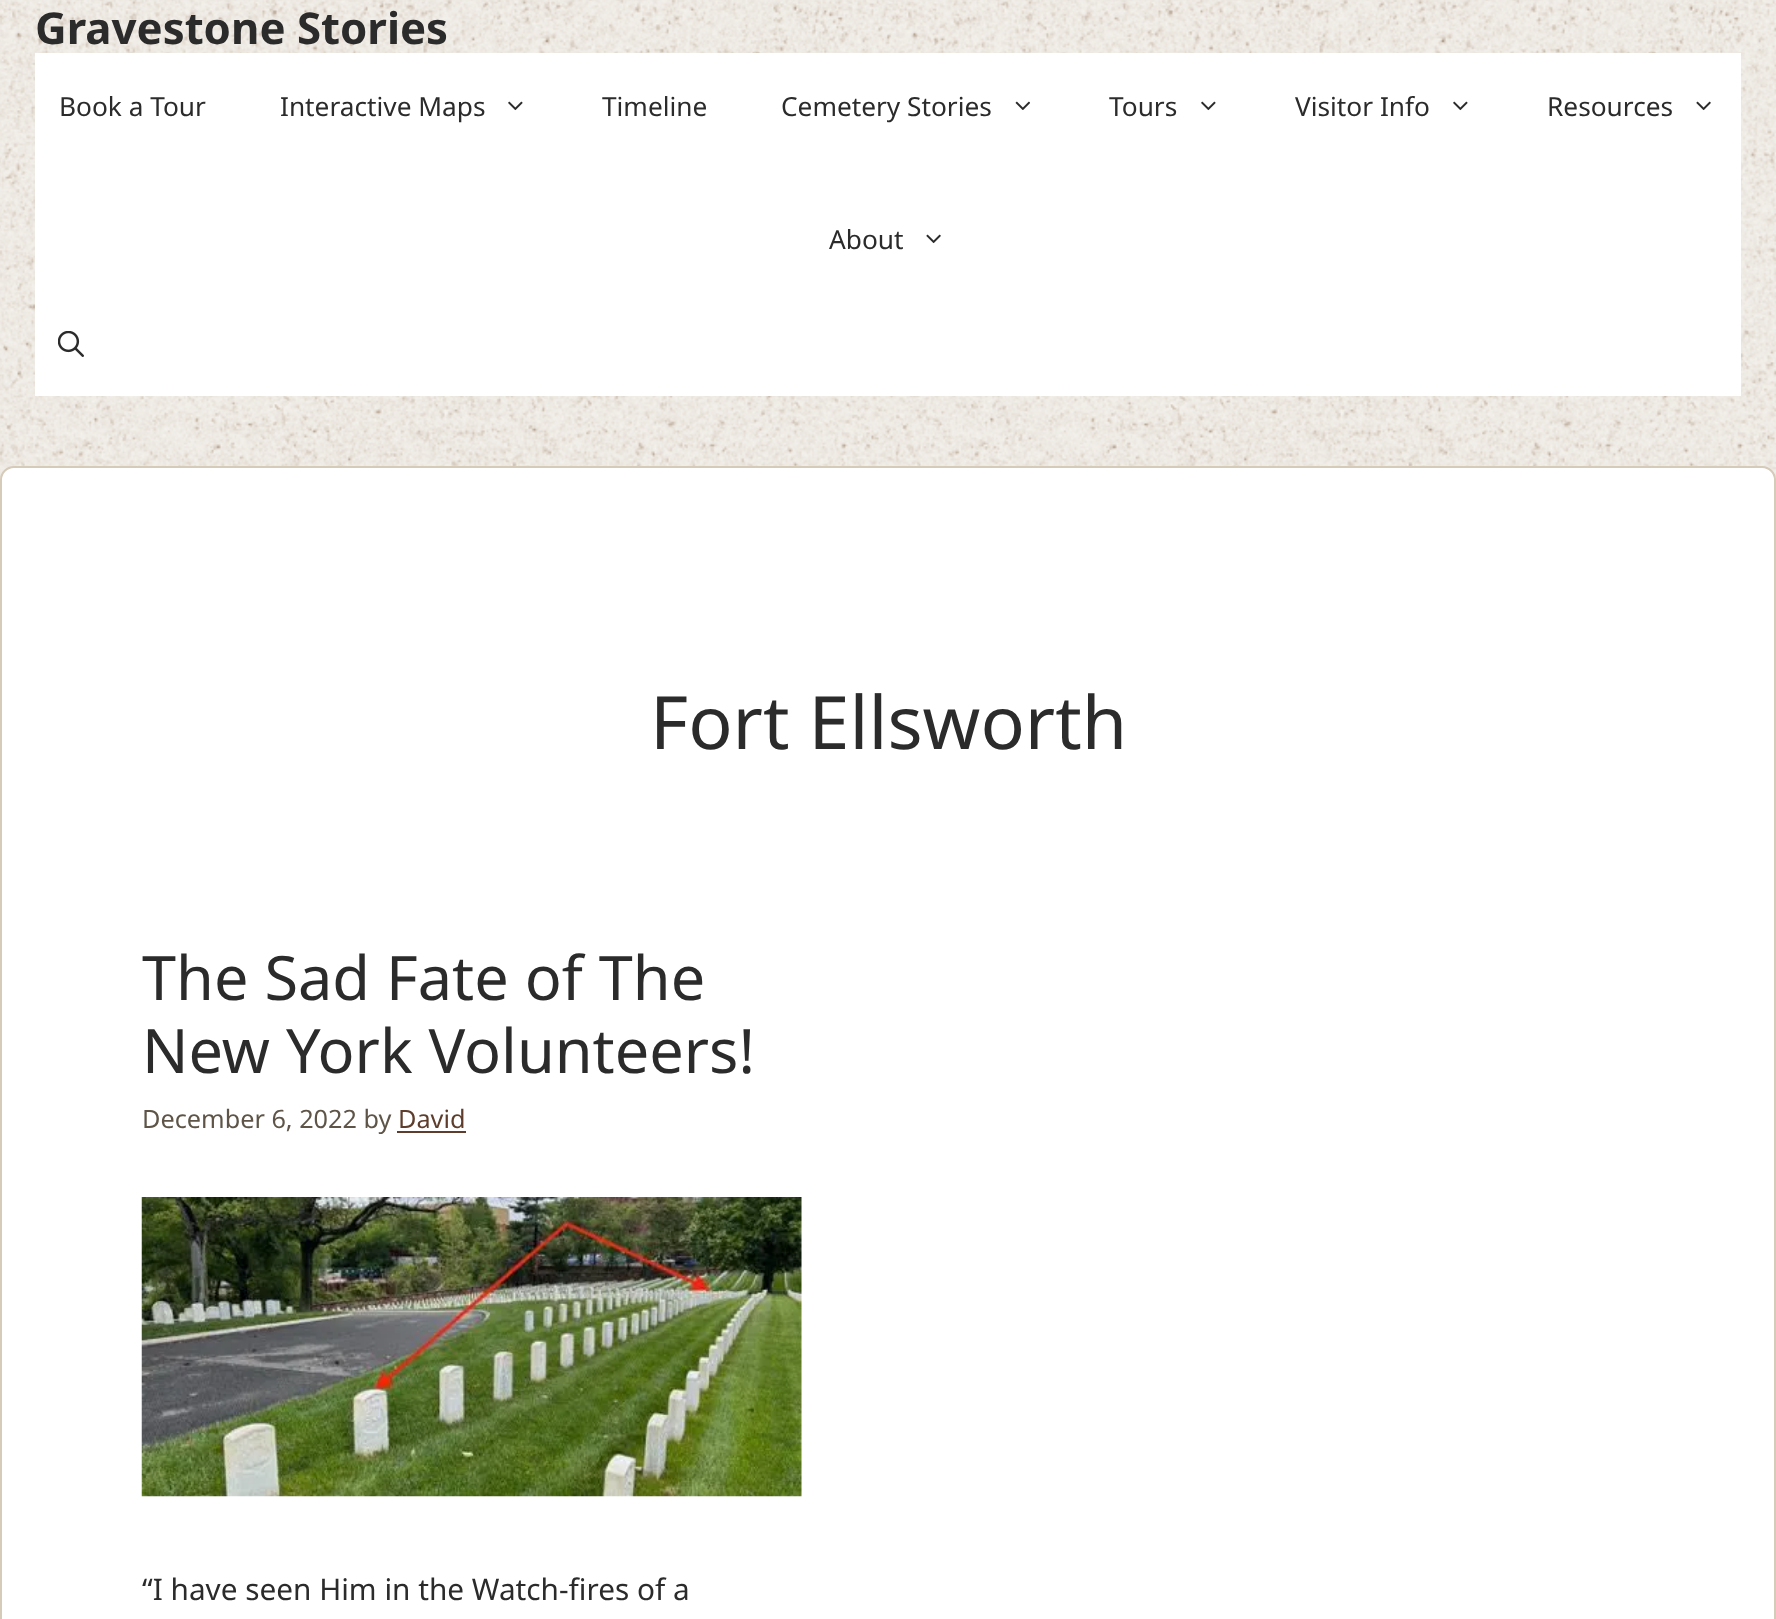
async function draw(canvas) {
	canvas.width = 1776;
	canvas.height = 1619;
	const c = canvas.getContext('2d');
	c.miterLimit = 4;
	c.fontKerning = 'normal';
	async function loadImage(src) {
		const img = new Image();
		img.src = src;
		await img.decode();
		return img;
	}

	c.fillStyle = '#fff';
	c.fillRect(0, 0, 1776, 1619);
	c.drawImage(await loadImage('img1.png'), 0, 0, 1776, 480);
	c.font = 'bold 43.75px Noto Sans';
	c.fillStyle = '#2b2b2b';
	c.fillText('Gravestone Stories', 35, 44);
	c.fillStyle = '#fff';
	c.fillRect(35, 53, 1706, 343);
	c.font = '26.25px Noto Sans';
	c.fillStyle = '#2b2b2b';
	c.fillText('Book a Tour', 59, 116);
	c.fillText('Interactive Maps', 280, 116);
	c.drawImage(await loadImage('img2.png'), 508, 101, 15, 10);
	c.fillText('Timeline', 602, 116);
	c.fillText('Cemetery Stories', 781, 116);
	c.drawImage(await loadImage('img3.png'), 1015, 101, 15, 9);
	c.fillText('Tours', 1109, 116);
	c.drawImage(await loadImage('img2.png'), 1201, 101, 15, 10);
	c.fillText('Visitor Info', 1295, 116);
	c.drawImage(await loadImage('img2.png'), 1453, 101, 15, 10);
	c.fillText('Resources', 1547, 116);
	c.drawImage(await loadImage('img4.png'), 1696, 101, 15, 10);
	c.fillText('About', 829, 249);
	c.drawImage(await loadImage('img4.png'), 926, 234, 15, 10);
	c.drawImage(await loadImage('img5.png'), 58, 331, 26, 26);
	c.fillStyle = '#fff';
	c.beginPath();
	c.roundRect(1, 467, 1774, 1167, 13);
	c.fill();
	c.strokeStyle = '#d6cab8';
	c.lineWidth = 2;
	c.stroke();
	c.font = '73.5px Noto Sans';
	c.fillStyle = '#2b2b2b';
	c.fillText('Fort Ellsworth', 650, 749);
	c.font = '61.25px Noto Sans';
	c.fillText('The Sad Fate of The', 142, 1000);
	c.fillText('New York Volunteers!', 142, 1073);
	c.font = '25.25px Noto Sans';
	c.fillStyle = '#5e5548';
	c.fillText('December 6, 2022 by', 142, 1128);
	c.fillStyle = '#5e3d2c';
	c.fillText('David', 398, 1128);
	c.fillRect(397, 1131, 69, 2);
	c.drawImage(await loadImage('img6.png'), 141, 1197, 661, 300);
	c.font = '29.75px Noto Sans';
	c.fillStyle = '#2b2b2b';
	c.fillText('“I have seen Him in the Watch-fires of a', 142, 1600);
}

draw(document.querySelector('canvas'));
